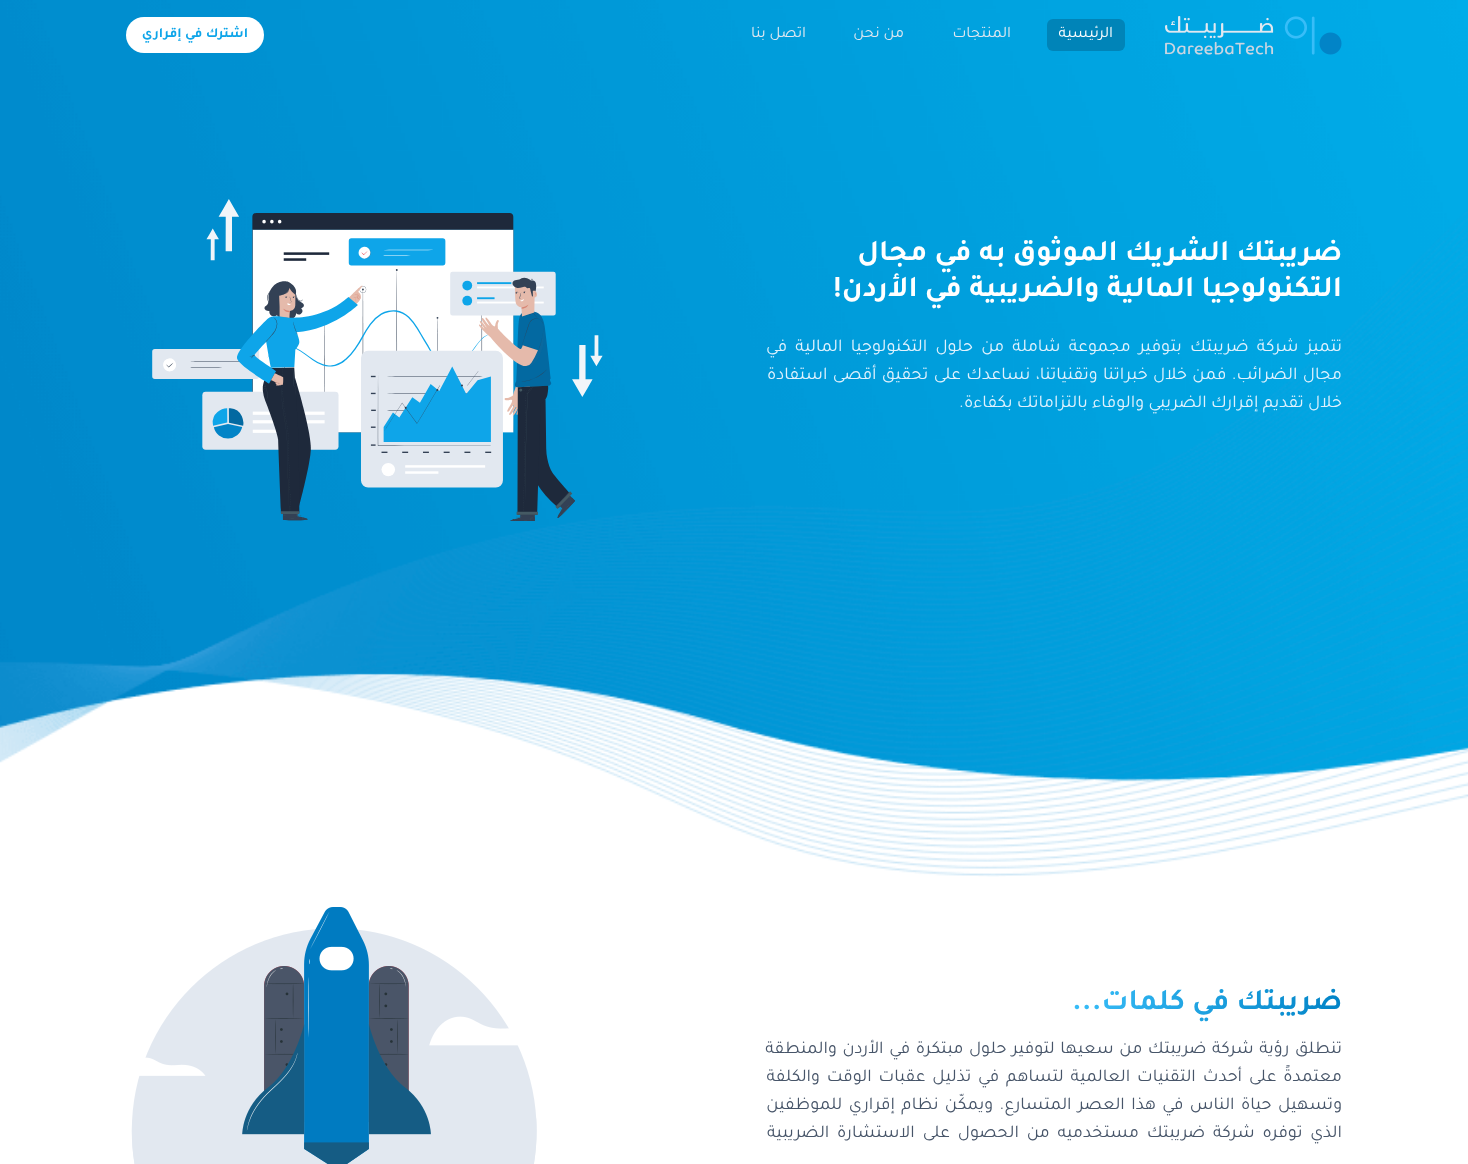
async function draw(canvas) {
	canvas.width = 1468;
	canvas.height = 1164;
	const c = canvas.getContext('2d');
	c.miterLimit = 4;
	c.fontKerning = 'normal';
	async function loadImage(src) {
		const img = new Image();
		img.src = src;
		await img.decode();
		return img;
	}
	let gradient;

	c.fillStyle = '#fff';
	c.fillRect(0, 0, 1468, 1164);
	c.drawImage(await loadImage('img1.png'), 0, 0, 1468, 877);
	c.drawImage(await loadImage('img2.png'), 1165, 16, 177, 39);
	c.fillStyle = '#0084b8';
	c.beginPath();
	c.roundRect(1047, 19, 78, 32, 6);
	c.fill();
	c.direction = 'rtl';
	c.font = '16px Tajawal';
	c.fillStyle = '#fff';
	c.fillText('الرئيسية', 1113, 37);
	c.fillStyle = '#e2e8f0';
	for (const [text, x, y] of [
		['المنتجات', 1011, 37],
		['من نحن', 904, 37],
		['اتصل بنا', 806, 37],
	]) {
		c.fillText(text, x, y);
	}
	c.fillStyle = '#fff';
	c.beginPath();
	c.roundRect(126, 17, 138, 36, 18);
	c.fill();
	c.font = 'bold 14px Tajawal';
	c.fillStyle = '#0ea5e9';
	c.fillText('اشترك في إقراري', 248, 37);
	c.font = 'bold 30px Tajawal';
	c.fillStyle = '#fff';
	c.fillText('ضريبتك الشريك الموثوق به في مجال', 1342, 260);
	c.fillText('التكنولوجيا المالية والضريبية في الأردن!', 1342, 296);
	c.wordSpacing = '3.9px';
	c.font = '18px Tajawal';
	c.fillStyle = '#e0f2fe';
	c.fillText('تتميز شركة ضريبتك بتوفير مجموعة شاملة من حلول التكنولوجيا المالية في', 1342, 351);
	c.wordSpacing = '1px';
	c.fillText('مجال الضرائب. فمن خلال خبراتنا وتقنياتنا، نساعدك على تحقيق أقصى استفادة', 1342, 379);
	c.wordSpacing = '0px';
	c.fillText('خلال تقديم إقرارك الضريبي والوفاء بالتزاماتك بكفاءة.', 1342, 407);
	c.drawImage(await loadImage('img3.png'), 152, 199, 451, 322);
	c.font = 'bold 30px Tajawal';
	gradient = c.createLinearGradient(1342, 1005, 1072, 1005);
	gradient.addColorStop(0, '#0284c7');
	gradient.addColorStop(1, '#38bdf8');
	c.fillStyle = gradient;
	c.fillText('ضريبتك في كلمات...', 1342, 1009);
	c.wordSpacing = '1.25px';
	c.font = '18px Tajawal';
	c.fillStyle = '#475569';
	c.fillText('تنطلق رؤية شركة ضريبتك من سعيها لتوفير حلول مبتكرة في الأردن والمنطقة', 1342, 1053);
	c.wordSpacing = '2.6px';
	c.fillText('معتمدةً على أحدث التقنيات العالمية لتساهم في تذليل عقبات الوقت والكلفة', 1342, 1081);
	c.wordSpacing = '2.1px';
	c.fillText('وتسهيل حياة الناس في هذا العصر المتسارع. ويمكّن نظام إقراري للموظفين', 1342, 1109);
	c.wordSpacing = '3.5px';
	c.fillText('الذي توفره شركة ضريبتك مستخدميه من الحصول على الاستشارة الضريبية', 1342, 1137);
	c.drawImage(await loadImage('img4.png'), 131, 907, 406, 257);
}

draw(document.querySelector('canvas'));
